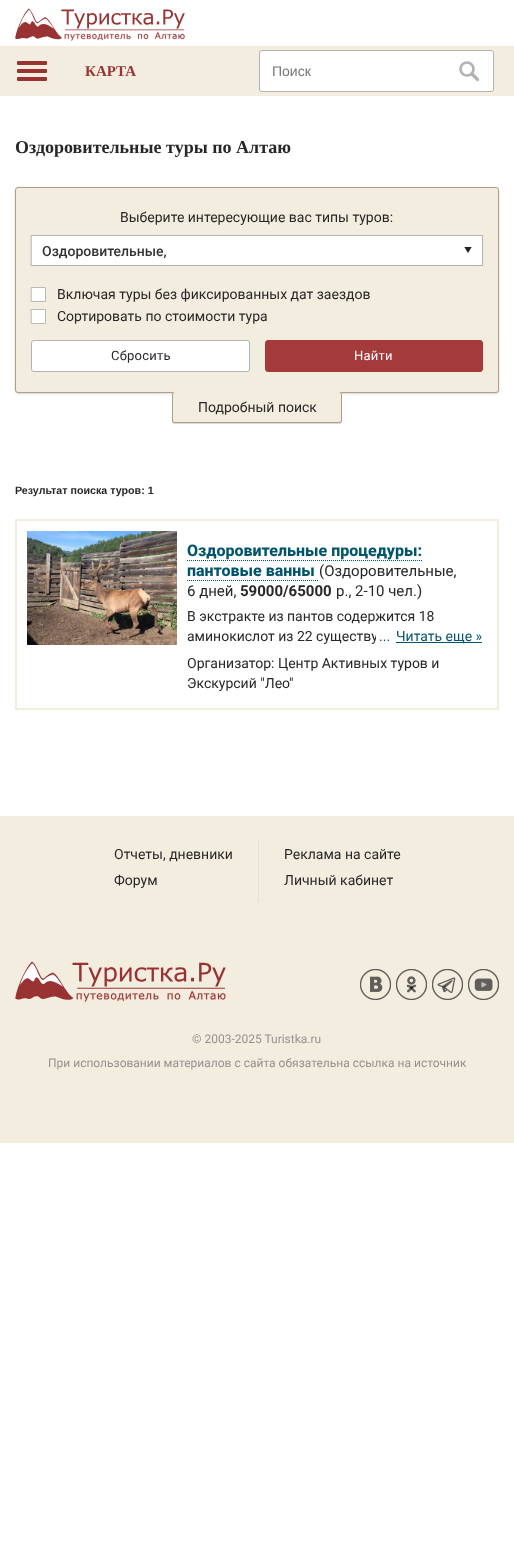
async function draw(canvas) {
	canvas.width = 514;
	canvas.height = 1559;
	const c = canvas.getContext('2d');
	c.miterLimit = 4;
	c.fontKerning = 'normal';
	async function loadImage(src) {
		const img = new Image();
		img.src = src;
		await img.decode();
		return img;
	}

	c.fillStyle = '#fff';
	c.fillRect(0, 0, 514, 1559);
	c.drawImage(await loadImage('img1.png'), 15, 8, 170, 33);
	c.fillStyle = '#f3eddf';
	c.fillRect(0, 46, 514, 50);
	c.fillStyle = '#933';
	c.beginPath();
	c.roundRect(17, 61, 30, 4, 1);
	c.fill();
	c.beginPath();
	c.roundRect(17, 69, 30, 4, 1);
	c.fill();
	c.beginPath();
	c.roundRect(17, 77, 30, 4, 1);
	c.fill();
	c.font = 'bold 15px Liberation Serif';
	c.fillText('КАРТА', 85, 76);
	c.fillStyle = '#fff';
	c.beginPath();
	c.roundRect(259.5, 50.5, 234, 41, 2.5);
	c.fill();
	c.strokeStyle = '#b3b3b3';
	c.stroke();
	c.font = '14px Liberation Sans';
	c.fillStyle = '#757575';
	c.fillText('Поиск', 272, 76);
	c.beginPath();
	c.arc(467, 69, 6.5, 0, 2 * Math.PI);
	c.lineWidth = 2.7;
	c.stroke();
	c.beginPath();
	c.moveTo(477.5, 79.5);
	c.lineTo(472, 74);
	c.lineWidth = 3.2;
	c.lineCap = 'round';
	c.lineJoin = 'round';
	c.stroke();
	c.font = 'bold 18px Liberation Serif';
	c.fillStyle = '#272727';
	c.fillText('Оздоровительные туры по Алтаю', 15, 153);
	c.fillStyle = '#00000026';
	c.filter = 'blur(1px)';
	c.beginPath();
	c.roundRect(15, 188, 484, 206, 3);
	c.fill();
	c.filter = 'none';
	c.fillStyle = '#f3eddf';
	c.beginPath();
	c.roundRect(15.5, 187.5, 483, 205, 2.5);
	c.fill();
	c.strokeStyle = '#b29b87';
	c.lineWidth = 1;
	c.lineJoin = 'miter';
	c.stroke();
	c.font = '14px Roboto';
	c.fillStyle = '#272727';
	c.fillText('Выберите интересующие вас типы туров:', 120, 222);
	c.fillStyle = '#fff';
	c.beginPath();
	c.rect(31.5, 235.5, 451, 30);
	c.fill();
	c.strokeStyle = '#b3b3b3';
	c.stroke();
	c.font = '500 14px Roboto';
	c.fillStyle = '#333';
	c.fillText('Оздоровительные,', 42, 256);
	c.save();
	c.beginPath();
	c.rect(464, 247, 8, 6);
	c.clip();
	c.fillStyle = '#222';
	c.beginPath();
	c.moveTo(464, 246.5);
	c.lineTo(468, 253);
	c.lineTo(472, 246.5);
	c.closePath();
	c.fill('evenodd');
	c.restore();
	c.fillStyle = '#fff';
	c.beginPath();
	c.rect(31.5, 287.5, 14, 14);
	c.fill();
	c.strokeStyle = '#b9b9b9';
	c.stroke();
	c.font = '14px Roboto';
	c.fillStyle = '#272727';
	c.fillText('Включая туры без фиксированных дат заездов', 57, 299);
	c.fillStyle = '#fff';
	c.beginPath();
	c.rect(31.5, 309.5, 14, 14);
	c.fill();
	c.stroke();
	c.fillStyle = '#272727';
	c.fillText('Сортировать по стоимости тура', 57, 321);
	c.fillStyle = '#fff';
	c.beginPath();
	c.roundRect(31.5, 340.5, 218, 31, 2.5);
	c.fill();
	c.strokeStyle = '#b3b3b3';
	c.stroke();
	c.letterSpacing = '0.25px';
	c.font = '13px Roboto';
	c.fillStyle = '#272727';
	c.fillText('Сбросить', 111, 360);
	c.fillStyle = '#a53a3a';
	c.beginPath();
	c.roundRect(265.5, 340.5, 217, 31, 2.5);
	c.fill();
	c.strokeStyle = '#a53a3a';
	c.stroke();
	c.fillStyle = '#fff';
	c.fillText('Найти', 354, 360);
	c.fillStyle = '#00000026';
	c.filter = 'blur(0.5px)';
	c.beginPath();
	c.roundRect(172, 393, 170, 31, 3);
	c.fill();
	c.filter = 'none';
	c.fillStyle = '#f3eddf';
	c.beginPath();
	c.roundRect(172, 392, 170, 31, 3);
	c.fill();
	c.fillStyle = '#b29b87';
	c.beginPath();
	c.moveTo(175, 392);
	c.lineTo(339, 392);
	c.bezierCurveTo(341, 392, 342, 393, 342, 395);
	c.lineTo(342, 420);
	c.bezierCurveTo(342, 422, 341, 423, 339, 423);
	c.lineTo(175, 423);
	c.bezierCurveTo(173, 423, 172, 422, 172, 420);
	c.lineTo(172, 395);
	c.bezierCurveTo(172, 393, 173, 392, 175, 392);
	c.closePath();
	c.moveTo(175, 392);
	c.lineTo(339, 392);
	c.bezierCurveTo(340, 392, 341, 393, 341, 395);
	c.lineTo(341, 420);
	c.bezierCurveTo(341, 421, 340, 422, 339, 422);
	c.lineTo(175, 422);
	c.bezierCurveTo(174, 422, 173, 421, 173, 420);
	c.lineTo(173, 395);
	c.bezierCurveTo(173, 393, 174, 392, 175, 392);
	c.closePath();
	c.fill('evenodd');
	c.letterSpacing = '0px';
	c.font = '14px Roboto';
	c.fillStyle = '#272727';
	c.fillText('Подробный поиск', 198, 412);
	c.font = 'bold 10.7px Liberation Sans';
	c.fillText('Результат поиска туров: 1', 15, 494);
	c.strokeStyle = '#f3eddf';
	c.lineWidth = 2;
	c.strokeRect(16, 520, 482, 189);
	c.drawImage(await loadImage('img2.png'), 27, 531, 150, 114);
	c.font = '800 16px Roboto';
	c.fillStyle = '#00546b';
	c.fillText('Оздоровительные процедуры:', 187, 556);
	c.beginPath();
	c.moveTo(187, 560.5);
	c.lineTo(422, 560.5);
	c.strokeStyle = '#00546b';
	c.lineWidth = 1;
	c.lineCap = 'butt';
	c.setLineDash([1, 1]);
	c.stroke();
	c.fillText('пантовые ванны', 187, 576);
	c.beginPath();
	c.moveTo(187, 580.5);
	c.lineTo(319, 580.5);
	c.stroke();
	c.font = '15px Roboto';
	c.fillStyle = '#272727';
	c.fillText('(Оздоровительные,', 319, 576);
	c.fillText('6 дней,', 187, 596);
	c.font = 'bold 15px Roboto';
	c.fillText('59000/65000', 240, 596);
	c.font = '15px Roboto';
	c.fillText('р., 2-10 чел.)', 336, 596);
	c.font = '14px Roboto';
	c.fillText('В экстракте из пантов содержится 18', 187, 621);
	c.fillText('аминокислот из 22 существу', 187, 641);
	c.fillStyle = '#fff';
	c.fillRect(376, 633, 2, 5);
	c.fillStyle = '#00546b';
	c.fillRect(396, 642, 86, 1);
	c.fillText('Читать еще »', 396, 641);
	c.fillText('...', 379, 641);
	c.fillStyle = '#272727';
	c.fillText('Организатор: Центр Активных туров и', 187, 668);
	c.fillText('Экскурсий "Лео"', 187, 688);
	c.fillStyle = '#f3eddf';
	c.fillRect(0, 816, 514, 327);
	c.beginPath();
	c.moveTo(258.5, 841);
	c.lineTo(258.5, 903);
	c.strokeStyle = '#d3d3d3';
	c.stroke();
	c.fillStyle = '#272727';
	for (const [text, x, y] of [
		['Отчеты, дневники', 114, 859],
		['Форум', 114, 885],
		['Реклама на сайте', 284, 859],
		['Личный кабинет', 284, 885],
	]) {
		c.fillText(text, x, y);
	}
	c.drawImage(await loadImage('img3.png'), 15, 961, 211, 41);
	c.drawImage(await loadImage('img4.png'), 360, 969, 31, 31);
	c.drawImage(await loadImage('img5.png'), 396, 969, 31, 31);
	c.drawImage(await loadImage('img6.png'), 432, 969, 31, 31);
	c.drawImage(await loadImage('img7.png'), 468, 969, 31, 31);
	c.font = '12px Roboto';
	c.fillStyle = '#939290';
	c.fillText('© 2003-2025 Turistka.ru', 192, 1043);
	c.fillText('При использовании материалов с сайта обязательна ссылка на источник', 48, 1067);
}

draw(document.querySelector('canvas'));
